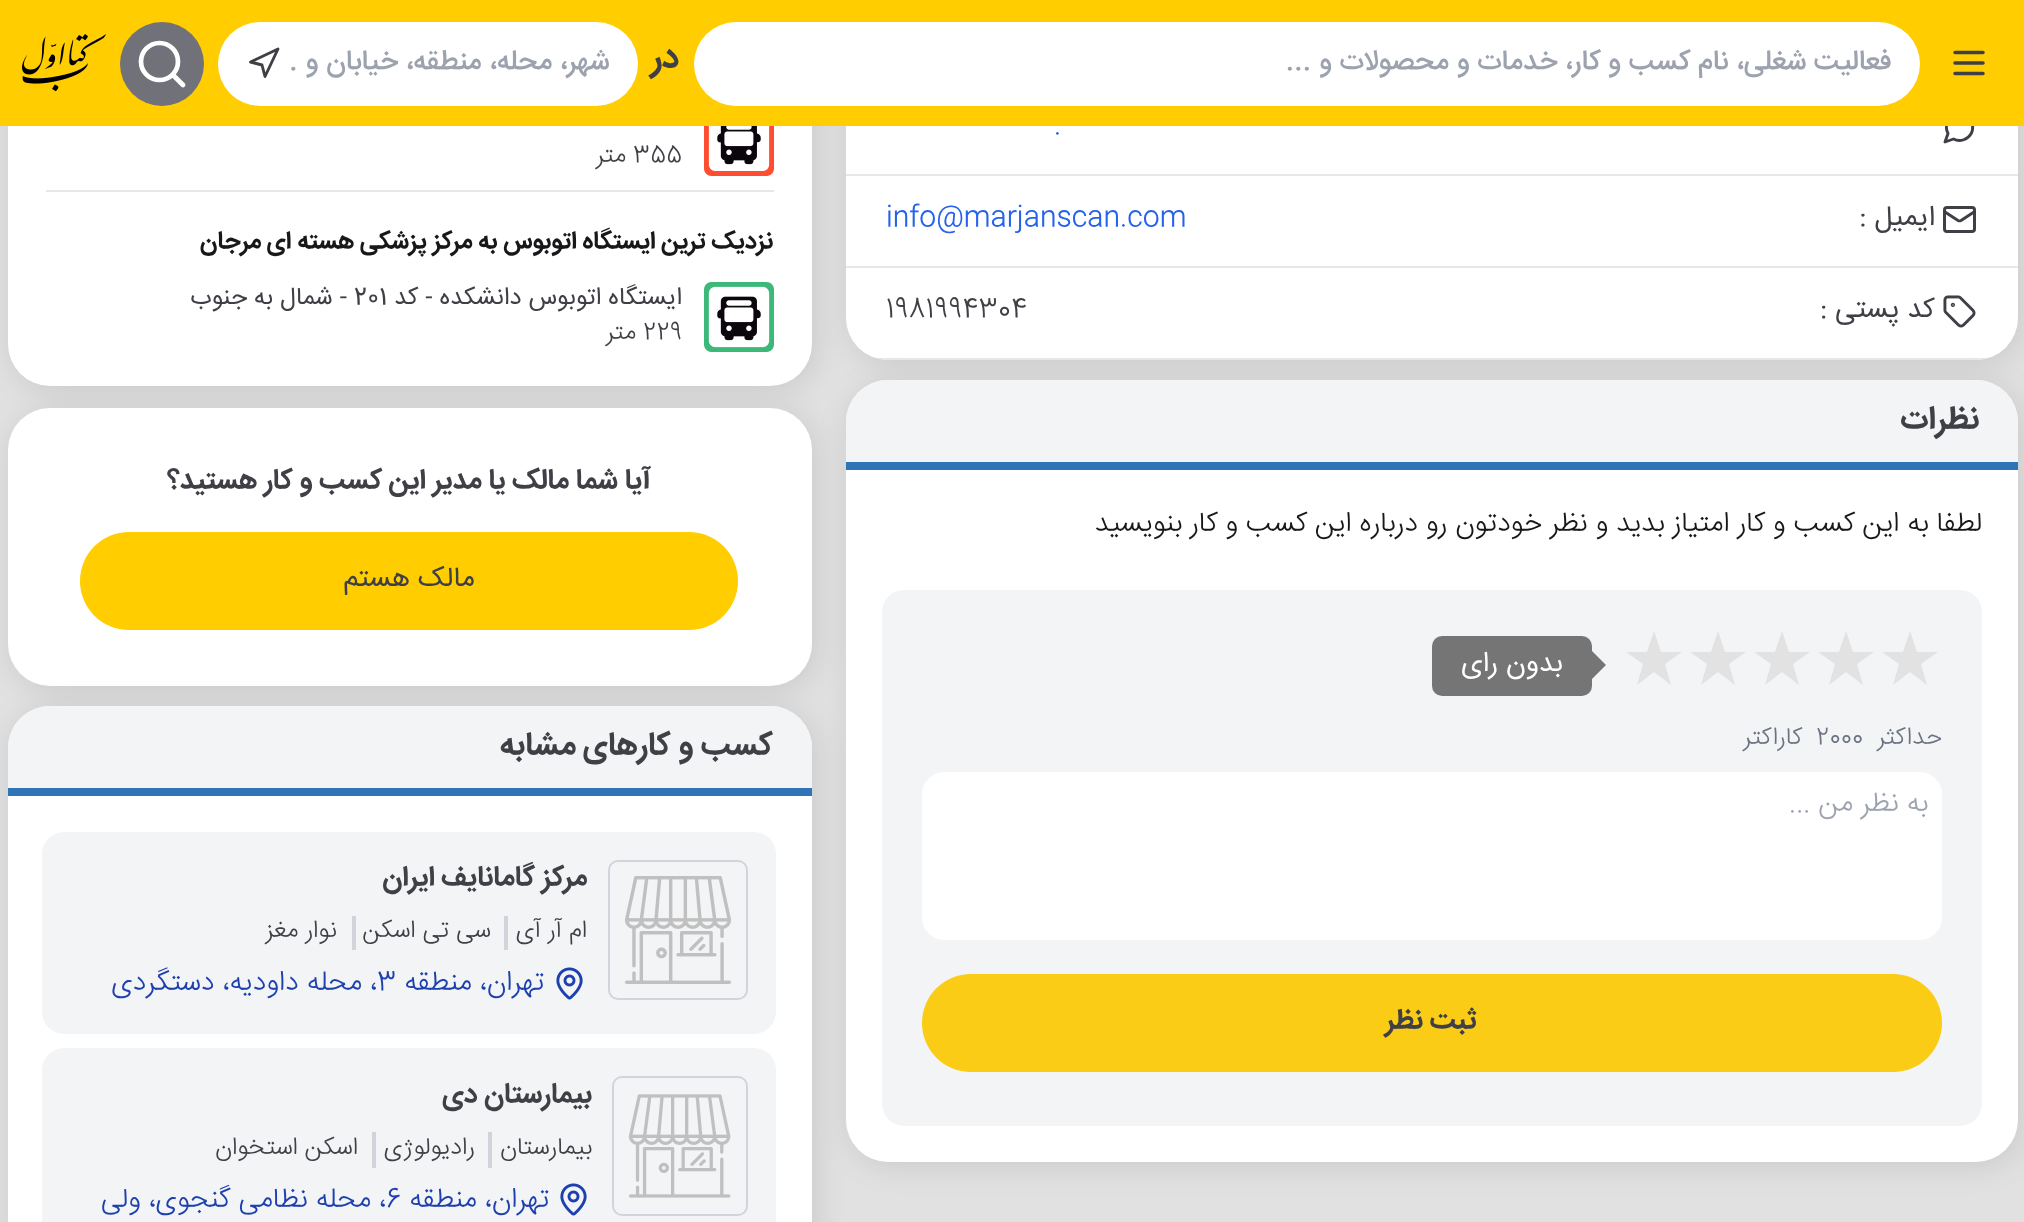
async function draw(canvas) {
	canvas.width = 2024;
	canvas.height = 1222;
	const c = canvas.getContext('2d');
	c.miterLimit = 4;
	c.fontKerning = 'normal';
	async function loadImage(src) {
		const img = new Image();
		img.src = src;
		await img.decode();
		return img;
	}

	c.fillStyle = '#e1e1e1';
	c.fillRect(0, 0, 2024, 1222);
	c.fillStyle = '#0000001a';
	c.filter = 'blur(15px)';
	c.beginPath();
	c.roundRect(850, -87, 1172, 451, 42);
	c.fill();
	c.filter = 'none';
	c.fillStyle = '#fff';
	c.beginPath();
	c.roundRect(846, -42, 1172, 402, 42);
	c.fill();
	c.beginPath();
	c.moveTo(1953.5, 139);
	c.bezierCurveTo(1960, 142.5, 1968, 139.5, 1971.5, 133);
	c.bezierCurveTo(1973, 129.5, 1973, 125.5, 1971.5, 122);
	c.bezierCurveTo(1964, 106, 1940, 118, 1948, 133.5);
	c.lineTo(1945, 142);
	c.closePath();
	c.strokeStyle = '#3f3f46';
	c.lineWidth = 2.9;
	c.lineCap = 'round';
	c.lineJoin = 'round';
	c.stroke();
	c.fillStyle = '#e5e7eb';
	c.fillRect(846, 174, 1172, 2);
	c.fillRect(846, 266, 1172, 2);
	c.save();
	c.beginPath();
	c.roundRect(846, -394, 1172, 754, 42);
	c.clip();
	c.fillRect(875, 358, 1114, 2);
	c.restore();
	c.fillStyle = '#0000001a';
	c.filter = 'blur(15px)';
	c.beginPath();
	c.roundRect(850, 384, 1172, 782, 42);
	c.fill();
	c.filter = 'none';
	c.fillStyle = '#fff';
	c.beginPath();
	c.roundRect(846, 380, 1172, 782, 42);
	c.fill();
	c.fillStyle = '#f3f4f6';
	c.beginPath();
	c.roundRect(846, 380, 1172, 82, [42, 42, 0, 0]);
	c.fill();
	c.fillStyle = '#0000001a';
	c.filter = 'blur(15px)';
	c.beginPath();
	c.roundRect(12, -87, 804, 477, 42);
	c.fill();
	c.filter = 'none';
	c.fillStyle = '#fff';
	c.beginPath();
	c.roundRect(8, -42, 804, 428, 42);
	c.fill();
	c.fillStyle = '#ffcd00';
	c.fillRect(0, 0, 2024, 126);
	c.beginPath();
	c.moveTo(1955, 63);
	c.lineTo(1983, 63);
	c.moveTo(1955, 52.5);
	c.lineTo(1983, 52.5);
	c.moveTo(1955, 73.5);
	c.lineTo(1983, 73.5);
	c.lineWidth = 3.5;
	c.stroke();
	c.fillStyle = '#fff';
	c.beginPath();
	c.roundRect(694, 22, 1226, 84, 42);
	c.fill();
	c.direction = 'rtl';
	c.font = '500 28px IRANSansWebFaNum';
	c.fillStyle = '#9ca3af';
	c.fillText('فعالیت شغلی، نام کسب و کار، خدمات و محصولات و ...', 1891, 69);
	c.font = 'bold 35px IRANSansWebFaNum';
	c.fillStyle = '#3f3f46';
	c.fillText('در', 679, 67);
	c.fillStyle = '#fff';
	c.beginPath();
	c.roundRect(218, 22, 420, 84, 42);
	c.fill();
	c.save();
	c.beginPath();
	c.rect(288, 42, 322, 44);
	c.clip();
	c.font = '500 28px IRANSansWebFaNum';
	c.fillStyle = '#9ca3af';
	c.fillText('شهر، محله، منطقه، خیابان و ...', 609, 69);
	c.restore();
	c.beginPath();
	c.moveTo(250.5, 62);
	c.lineTo(278, 49);
	c.lineTo(265, 76.5);
	c.lineTo(262, 65);
	c.closePath();
	c.lineWidth = 2.9;
	c.stroke();
	c.fillStyle = '#71717a';
	c.beginPath();
	c.arc(162, 64, 42, 0, 2 * Math.PI);
	c.fill();
	c.beginPath();
	c.arc(159.5, 61.5, 18.5, 0, 2 * Math.PI);
	c.strokeStyle = '#fff';
	c.lineWidth = 4.7;
	c.stroke();
	c.beginPath();
	c.moveTo(183, 85);
	c.lineTo(173, 75);
	c.stroke();
	c.drawImage(await loadImage('img1.png'), 22, 34, 84, 58);
	c.direction = 'ltr';
	c.font = '300 28px IRANSansWebFaNum';
	c.fillStyle = '#2563eb';
	c.fillText('.', 1054, 133);
	c.beginPath();
	c.roundRect(1944.5, 207.5, 30, 24, 2.5);
	c.strokeStyle = '#3f3f46';
	c.lineWidth = 3;
	c.lineJoin = 'miter';
	c.stroke();
	c.beginPath();
	c.moveTo(1974, 212);
	c.lineTo(1961, 220.5);
	c.bezierCurveTo(1960, 221, 1959, 221, 1958, 220.5);
	c.lineTo(1945, 212);
	c.lineWidth = 2.9;
	c.lineJoin = 'round';
	c.stroke();
	c.direction = 'rtl';
	c.font = '28px IRANSansWebFaNum';
	c.fillStyle = '#3f3f46';
	c.fillText('ایمیل :', 1935, 225);
	c.direction = 'ltr';
	c.font = '300 28px IRANSansWebFaNum';
	c.fillStyle = '#2563eb';
	c.fillText('info@marjanscan.com', 886, 225);
	c.drawImage(await loadImage('img2.png'), 1943, 295, 33, 33);
	c.direction = 'rtl';
	c.font = '28px IRANSansWebFaNum';
	c.fillStyle = '#3f3f46';
	c.fillText('کد پستی :', 1935, 317);
	c.direction = 'ltr';
	c.font = '300 28px IRANSansWebFaNum';
	c.fillText('1981994304', 886, 317);
	c.fillStyle = '#2e74b7';
	c.fillRect(846, 462, 1172, 8);
	c.direction = 'rtl';
	c.font = 'bold 32px IRANSansWebFaNum';
	c.fillStyle = '#3f3f46';
	c.fillText('نظرات', 1979, 428);
	c.font = '300 28px IRANSansWebFaNum';
	c.fillStyle = '#18181b';
	c.fillText('لطفا به این کسب و کار امتیاز بدید و نظر خودتون رو درباره این کسب', 1982, 531);
	c.fillText('و کار بنویسید', 1238, 531);
	c.fillStyle = '#f3f4f6';
	c.beginPath();
	c.roundRect(882, 590, 1100, 536, 22);
	c.fill();
	c.fillStyle = '#e2e2e2';
	c.beginPath();
	c.moveTo(1910, 631);
	c.lineTo(1917, 652);
	c.lineTo(1938, 652);
	c.lineTo(1921, 664);
	c.lineTo(1927, 685);
	c.lineTo(1910, 672);
	c.lineTo(1893, 685);
	c.lineTo(1899, 664);
	c.lineTo(1882, 652);
	c.lineTo(1903, 652);
	c.closePath();
	c.fill();
	c.beginPath();
	c.moveTo(1846, 631);
	c.lineTo(1853, 652);
	c.lineTo(1874, 652);
	c.lineTo(1857, 664);
	c.lineTo(1863, 685);
	c.lineTo(1846, 672);
	c.lineTo(1829, 685);
	c.lineTo(1835, 664);
	c.lineTo(1818, 652);
	c.lineTo(1839, 652);
	c.closePath();
	c.fill();
	c.beginPath();
	c.moveTo(1782, 631);
	c.lineTo(1789, 652);
	c.lineTo(1810, 652);
	c.lineTo(1793, 664);
	c.lineTo(1799, 685);
	c.lineTo(1782, 672);
	c.lineTo(1765, 685);
	c.lineTo(1771, 664);
	c.lineTo(1754, 652);
	c.lineTo(1775, 652);
	c.closePath();
	c.fill();
	c.beginPath();
	c.moveTo(1718, 631);
	c.lineTo(1725, 652);
	c.lineTo(1746, 652);
	c.lineTo(1729, 664);
	c.lineTo(1735, 685);
	c.lineTo(1718, 672);
	c.lineTo(1701, 685);
	c.lineTo(1707, 664);
	c.lineTo(1690, 652);
	c.lineTo(1711, 652);
	c.closePath();
	c.fill();
	c.beginPath();
	c.moveTo(1654, 631);
	c.lineTo(1661, 652);
	c.lineTo(1682, 652);
	c.lineTo(1665, 664);
	c.lineTo(1671, 685);
	c.lineTo(1654, 672);
	c.lineTo(1637, 685);
	c.lineTo(1643, 664);
	c.lineTo(1626, 652);
	c.lineTo(1647, 652);
	c.closePath();
	c.fill();
	c.fillStyle = '#757575';
	c.beginPath();
	c.roundRect(1432, 636, 160, 60, 10);
	c.fill();
	c.beginPath();
	c.moveTo(1592, 651);
	c.lineTo(1606, 665);
	c.lineTo(1592, 679);
	c.lineTo(1578, 665);
	c.closePath();
	c.fill();
	c.font = '28px IRANSansWebFaNum';
	c.fillStyle = '#fff';
	c.fillText('بدون رای', 1563, 671);
	c.font = '300 24.5px IRANSansWebFaNum';
	c.fillStyle = '#6b7280';
	c.fillText('حداکثر', 1942, 744);
	c.direction = 'ltr';
	c.fillText('2000', 1816, 744);
	c.direction = 'rtl';
	c.fillText('کاراکتر', 1802, 744);
	c.fillStyle = '#fff';
	c.beginPath();
	c.roundRect(922, 772, 1020, 168, 22);
	c.fill();
	c.font = '300 28px IRANSansWebFaNum';
	c.fillStyle = '#9ca3af';
	c.fillText('به نظر من ...', 1928, 811);
	c.fillStyle = '#facc15';
	c.beginPath();
	c.roundRect(922, 974, 1020, 98, 49);
	c.fill();
	c.font = 'bold 28px IRANSansWebFaNum';
	c.fillStyle = '#3f3f46';
	c.fillText('ثبت نظر', 1477, 1028);
	c.fillStyle = '#e5e7eb';
	c.fillRect(46, 190, 728, 2);
	c.drawImage(await loadImage('img3.png'), 704, 126, 70, 50);
	c.direction = 'ltr';
	c.font = '300 24.5px IRANSansWebFaNum';
	c.fillStyle = '#3f3f46';
	c.fillText('355', 633, 162);
	c.direction = 'rtl';
	c.fillText('متر', 626, 162);
	c.font = 'bold 24.5px IRANSansWebFaNum';
	c.fillStyle = '#18181b';
	c.fillText('نزدیک ترین ایستگاه اتوبوس به مرکز پزشکی هسته ای مرجان', 773, 248);
	c.drawImage(await loadImage('img4.png'), 704, 282, 70, 70);
	c.font = '24.5px IRANSansWebFaNum';
	c.fillStyle = '#3f3f46';
	c.fillText('ایستگاه اتوبوس دانشکده - کد', 682, 304);
	c.direction = 'ltr';
	c.fillText('201', 354, 304);
	c.direction = 'rtl';
	c.fillText('- شمال به جنوب', 347, 304);
	c.direction = 'ltr';
	c.font = '300 24.5px IRANSansWebFaNum';
	c.fillText('229', 643, 339);
	c.direction = 'rtl';
	c.fillText('متر', 636, 339);
	c.fillStyle = '#0000001a';
	c.filter = 'blur(15px)';
	c.beginPath();
	c.roundRect(12, 412, 804, 278, 42);
	c.fill();
	c.filter = 'none';
	c.fillStyle = '#fff';
	c.beginPath();
	c.roundRect(8, 408, 804, 278, 42);
	c.fill();
	c.font = 'bold 28px IRANSansWebFaNum';
	c.fillStyle = '#3f3f46';
	c.fillText('آیا شما مالک یا مدیر این کسب و کار هستید؟', 651, 488);
	c.fillStyle = '#ffcd00';
	c.beginPath();
	c.roundRect(80, 532, 658, 98, 49);
	c.fill();
	c.font = '28px IRANSansWebFaNum';
	c.fillStyle = '#3f3f46';
	c.fillText('مالک هستم', 475, 586);
	c.fillStyle = '#0000001a';
	c.filter = 'blur(15px)';
	c.beginPath();
	c.roundRect(12, 710, 804, 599, 42);
	c.fill();
	c.filter = 'none';
	c.fillStyle = '#fff';
	c.beginPath();
	c.roundRect(8, 706, 804, 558, 42);
	c.fill();
	c.fillStyle = '#f3f4f6';
	c.beginPath();
	c.roundRect(8, 706, 804, 82, [42, 42, 0, 0]);
	c.fill();
	c.fillStyle = '#2e74b7';
	c.fillRect(8, 788, 804, 8);
	c.font = 'bold 32px IRANSansWebFaNum';
	c.fillStyle = '#3f3f46';
	c.fillText('کسب و کارهای مشابه', 773, 754);
	c.fillStyle = '#f3f4f6';
	c.beginPath();
	c.roundRect(42, 832, 734, 202, 22);
	c.fill();
	c.beginPath();
	c.roundRect(609, 861, 138, 138, 9);
	c.strokeStyle = '#d1d5db';
	c.lineWidth = 2;
	c.lineJoin = 'miter';
	c.stroke();
	c.drawImage(await loadImage('img5.png'), 625, 876, 107, 108);
	c.font = 'bold 28px IRANSansWebFaNum';
	c.fillStyle = '#3f3f46';
	c.fillText('مرکز گامانایف ایران', 587, 885);
	c.font = '300 24.5px IRANSansWebFaNum';
	c.fillText('ام آر آی', 587, 937);
	c.fillStyle = '#d1d5db';
	c.fillRect(504, 916, 4, 34);
	c.fillStyle = '#3f3f46';
	c.fillText('سی تی اسکن', 491, 937);
	c.fillStyle = '#d1d5db';
	c.fillRect(352, 916, 4, 34);
	c.fillStyle = '#3f3f46';
	c.fillText('نوار مغز', 337, 937);
	c.drawImage(await loadImage('img6.png'), 556, 967, 27, 33);
	c.font = '300 28px IRANSansWebFaNum';
	c.fillStyle = '#1e40af';
	c.fillText('تهران، منطقه', 544, 990);
	c.direction = 'ltr';
	c.fillText('3', 377, 990);
	c.direction = 'rtl';
	c.fillText('، محله داودیه، دستگردی', 377, 990);
	c.fillStyle = '#f3f4f6';
	c.beginPath();
	c.roundRect(42, 1048, 734, 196, 22);
	c.fill();
	c.beginPath();
	c.roundRect(613, 1077, 134, 138, 9);
	c.stroke();
	c.drawImage(await loadImage('img7.png'), 628, 1094, 103, 104);
	c.font = 'bold 28px IRANSansWebFaNum';
	c.fillStyle = '#3f3f46';
	c.fillText('بیمارستان دی', 592, 1102);
	c.font = '300 24.5px IRANSansWebFaNum';
	c.fillText('بیمارستان', 592, 1154);
	c.fillStyle = '#d1d5db';
	c.fillRect(488, 1132, 4, 36);
	c.fillStyle = '#3f3f46';
	c.fillText('رادیولوژی', 475, 1154);
	c.fillStyle = '#d1d5db';
	c.fillRect(372, 1132, 4, 36);
	c.fillStyle = '#3f3f46';
	c.fillText('اسکن استخوان', 358, 1154);
	c.drawImage(await loadImage('img6.png'), 560, 1183, 27, 33);
	c.font = '300 28px IRANSansWebFaNum';
	c.fillStyle = '#1e40af';
	c.fillText('تهران، منطقه', 549, 1207);
	c.direction = 'ltr';
	c.fillText('6', 386, 1207);
	c.direction = 'rtl';
	c.fillText('، محله نظامی گنجوی، ولی', 386, 1207);
}

draw(document.querySelector('canvas'));
